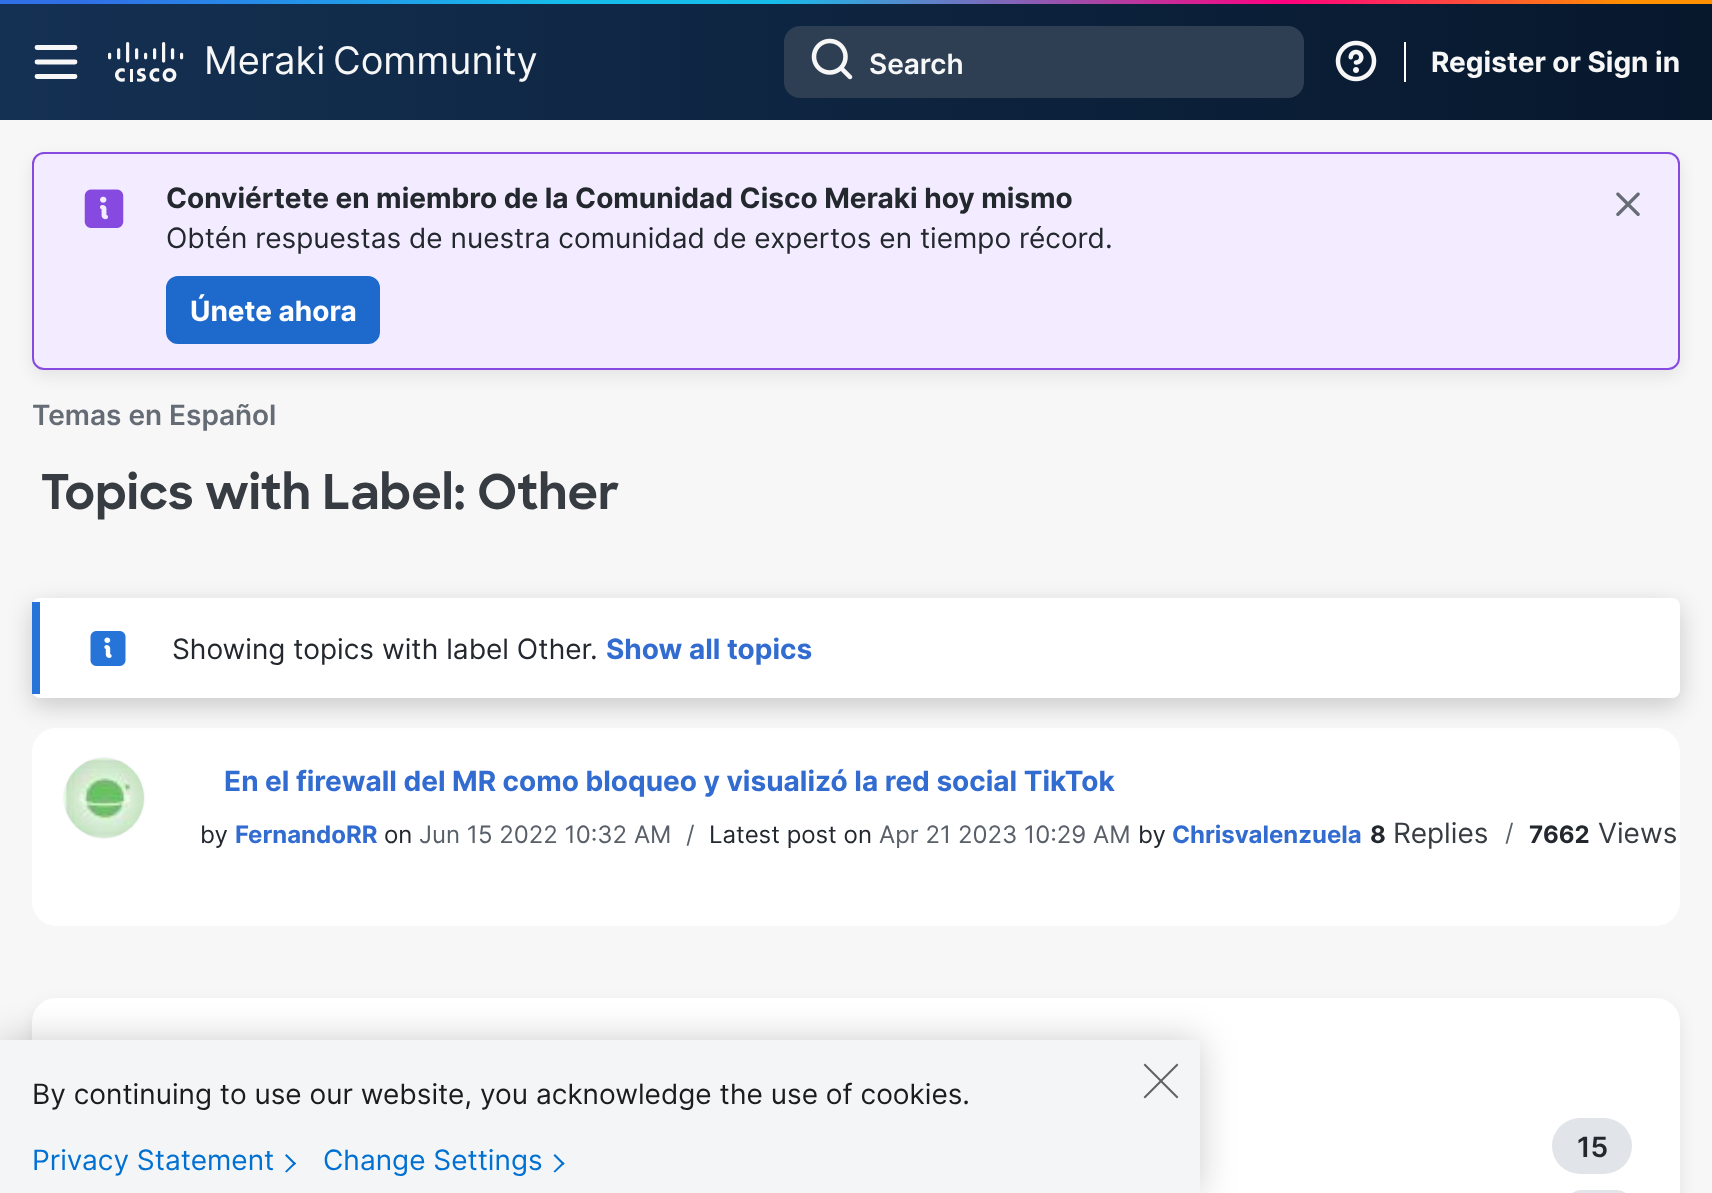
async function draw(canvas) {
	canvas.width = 1712;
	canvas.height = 1193;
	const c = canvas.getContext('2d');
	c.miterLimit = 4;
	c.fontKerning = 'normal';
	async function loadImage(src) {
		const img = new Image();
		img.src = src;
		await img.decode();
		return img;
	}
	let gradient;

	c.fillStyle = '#f7f7f7';
	c.fillRect(0, 0, 1712, 1193);
	gradient = c.createLinearGradient(0, 60, 1712, 60);
	gradient.addColorStop(0.01, '#143052');
	gradient.addColorStop(0.99, '#07182d');
	c.fillStyle = gradient;
	c.fillRect(0, 4, 1712, 116);
	gradient = c.createLinearGradient(0, 2, 1712, 2);
	gradient.addColorStop(0.05, '#3070e7');
	gradient.addColorStop(0.33, '#16bdeb');
	gradient.addColorStop(0.45, '#16bdeb');
	gradient.addColorStop(0.75, '#ff007f');
	gradient.addColorStop(0.95, '#ff9000');
	c.fillStyle = gradient;
	c.fillRect(0, 0, 1712, 4);
	c.beginPath();
	c.moveTo(37, 47.5);
	c.lineTo(75, 47.5);
	c.moveTo(37, 62);
	c.lineTo(75, 62);
	c.moveTo(37, 76.5);
	c.lineTo(75, 76.5);
	c.strokeStyle = '#f7f7f7';
	c.lineWidth = 4.8;
	c.lineCap = 'round';
	c.stroke();
	c.drawImage(await loadImage('img1.png'), 108, 42, 76, 40);
	c.font = '38px Inter';
	c.fillStyle = '#f7f7f7';
	c.fillText('Meraki', 204, 74);
	c.fillText('Community', 333, 74);
	c.fillStyle = '#2e3f54';
	c.beginPath();
	c.roundRect(784, 26, 520, 72, 16);
	c.fill();
	c.drawImage(await loadImage('img2.png'), 811, 38, 42, 42);
	c.font = '600 28px Inter';
	c.fillStyle = '#f7f7f7';
	c.fillText('Search', 869, 74);
	c.drawImage(await loadImage('img3.png'), 1335, 40, 42, 42);
	c.fillStyle = '#fff';
	c.fillRect(1404, 42, 2, 40);
	c.font = 'bold 28px Inter';
	c.fillStyle = '#f7f7f7';
	c.fillText('Register or Sign in', 1431, 72);
	c.fillStyle = '#00000014';
	c.filter = 'blur(8px)';
	c.beginPath();
	c.roundRect(32, 158, 1648, 218, 12);
	c.fill();
	c.filter = 'none';
	c.fillStyle = '#f3ebff';
	c.beginPath();
	c.roundRect(33, 153, 1646, 216, 11);
	c.fill();
	c.strokeStyle = '#864ae0';
	c.lineWidth = 2;
	c.stroke();
	c.drawImage(await loadImage('img4.png'), 84, 189, 40, 39);
	c.fillStyle = '#23282e';
	c.fillText('Conviértete en miembro de la Comunidad Cisco Meraki hoy mismo', 166, 208);
	c.font = '28px Inter';
	c.fillText('Obtén respuestas de nuestra comunidad de expertos en tiempo récord.', 166, 248);
	c.fillStyle = '#1d69cc';
	c.beginPath();
	c.roundRect(168, 278, 210, 64, 10);
	c.fill();
	c.strokeStyle = '#1d69cc';
	c.lineWidth = 4;
	c.stroke();
	c.font = 'bold 28px Inter';
	c.fillStyle = '#fff';
	c.fillText('Únete ahora', 190, 321);
	c.drawImage(await loadImage('img5.png'), 1616, 192, 24, 24);
	c.font = '600 28px Inter';
	c.fillStyle = '#656c75';
	c.fillText('Temas en Español', 32, 425);
	c.font = 'bold 48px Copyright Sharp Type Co';
	c.fillStyle = '#373c42';
	c.fillText('Topics with Label: Other', 40, 509);
	c.fillStyle = '#fff';
	c.beginPath();
	c.roundRect(32, 728, 1648, 198, 24);
	c.fill();
	c.fillStyle = '#0000002e';
	c.filter = 'blur(12px)';
	c.beginPath();
	c.roundRect(32, 606, 1648, 100, 8);
	c.fill();
	c.filter = 'none';
	c.fillStyle = '#fff';
	c.beginPath();
	c.roundRect(32, 598, 1648, 100, 8);
	c.fill();
	c.fillStyle = '#2774d9';
	c.fillRect(32, 602, 8, 92);
	c.drawImage(await loadImage('img6.png'), 90, 631, 36, 35);
	c.font = '28px Inter';
	c.fillStyle = '#23282e';
	c.fillText('Showing topics with label Other', 172, 659);
	c.fillText('.', 590, 659);
	c.font = 'bold 28px Inter';
	c.fillStyle = '#326cd1';
	c.fillText('Show all topics', 606, 659);
	c.fillStyle = '#e1e4e8';
	c.filter = 'blur(1px)';
	c.beginPath();
	c.roundRect(64, 758, 80, 80, 40);
	c.fill();
	c.filter = 'none';
	c.drawImage(await loadImage('img7.png'), 64, 758, 80, 80);
	c.fillStyle = '#326cd1';
	c.fillText('En el firewall del MR como bloqueo y visualizó la red social TikTok', 224, 791);
	c.font = '24px Inter';
	c.fillStyle = '#23282e';
	c.fillText('by', 200, 843);
	c.font = 'bold 24px Inter';
	c.fillStyle = '#326cd1';
	c.fillText('FernandoRR', 235, 843);
	c.font = '24px Inter';
	c.fillStyle = '#23282e';
	c.fillText('on', 384, 843);
	c.fillStyle = '#596069';
	c.fillText('Jun 15 2022 10:32 AM', 419, 843);
	c.fillText('/', 686, 843);
	c.fillStyle = '#23282e';
	c.fillText('Latest post on', 709, 843);
	c.fillStyle = '#596069';
	c.fillText('Apr 21 2023 10:29 AM', 879, 843);
	c.fillStyle = '#23282e';
	c.fillText('by', 1138, 843);
	c.font = 'bold 24px Inter';
	c.fillStyle = '#326cd1';
	c.fillText('Chrisvalenzuela', 1172, 843);
	c.fillStyle = '#23282e';
	c.fillText('8', 1370, 843);
	c.font = '28px Inter';
	c.fillStyle = '#373c42';
	c.fillText('Replies', 1393, 843);
	c.font = '24px Inter';
	c.fillStyle = '#596069';
	c.fillText('/', 1505, 841);
	c.font = 'bold 24px Inter';
	c.fillStyle = '#23282e';
	c.fillText('7662', 1529, 843);
	c.font = '28px Inter';
	c.fillStyle = '#373c42';
	c.fillText('Views', 1598, 843);
	c.fillStyle = '#00000014';
	c.filter = 'blur(8px)';
	c.beginPath();
	c.roundRect(32, 1004, 1648, 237, 24);
	c.fill();
	c.filter = 'none';
	c.fillStyle = '#fff';
	c.beginPath();
	c.roundRect(32, 998, 1648, 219, 24);
	c.fill();
	c.fillStyle = '#e1e4e8';
	c.beginPath();
	c.roundRect(1552, 1118, 80, 56, 28);
	c.fill();
	c.font = '600 28px Inter';
	c.fillStyle = '#23282e';
	c.fillText('15', 1577, 1157);
	c.fillStyle = '#e1e4e8';
	c.beginPath();
	c.roundRect(1566, 1190, 66, 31, 28);
	c.fill();
	c.fillStyle = '#00000033';
	c.filter = 'blur(18px)';
	c.beginPath();
	c.rect(0, 1040, 1200, 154);
	c.fill();
	c.filter = 'none';
	c.fillStyle = '#f4f5f6';
	c.fillRect(0, 1040, 1200, 153);
	c.font = '28px Inter';
	c.fillStyle = '#1b1c1d';
	c.fillText('By continuing to use our website, you acknowledge the use of cookies.', 32, 1104);
	c.fillStyle = '#0070d2';
	c.fillText('Privacy Statement', 32, 1170);
	c.beginPath();
	c.moveTo(286.5, 1154);
	c.lineTo(296, 1163.5);
	c.lineTo(294.5, 1165);
	c.lineTo(285, 1155.5);
	c.closePath();
	c.fill();
	c.beginPath();
	c.moveTo(294.5, 1162);
	c.lineTo(296, 1163.5);
	c.lineTo(286.5, 1172.5);
	c.lineTo(285, 1171.5);
	c.closePath();
	c.fill();
	c.fillText('Change Settings', 323, 1170);
	c.beginPath();
	c.moveTo(555, 1154);
	c.lineTo(564.5, 1163.5);
	c.lineTo(563, 1165);
	c.lineTo(553.5, 1155.5);
	c.closePath();
	c.fill();
	c.beginPath();
	c.moveTo(563, 1162);
	c.lineTo(564.5, 1163.5);
	c.lineTo(555, 1172.5);
	c.lineTo(553.5, 1171.5);
	c.closePath();
	c.fill();
	c.drawImage(await loadImage('img8.png'), 1143, 1063, 36, 36);
}

draw(document.querySelector('canvas'));
